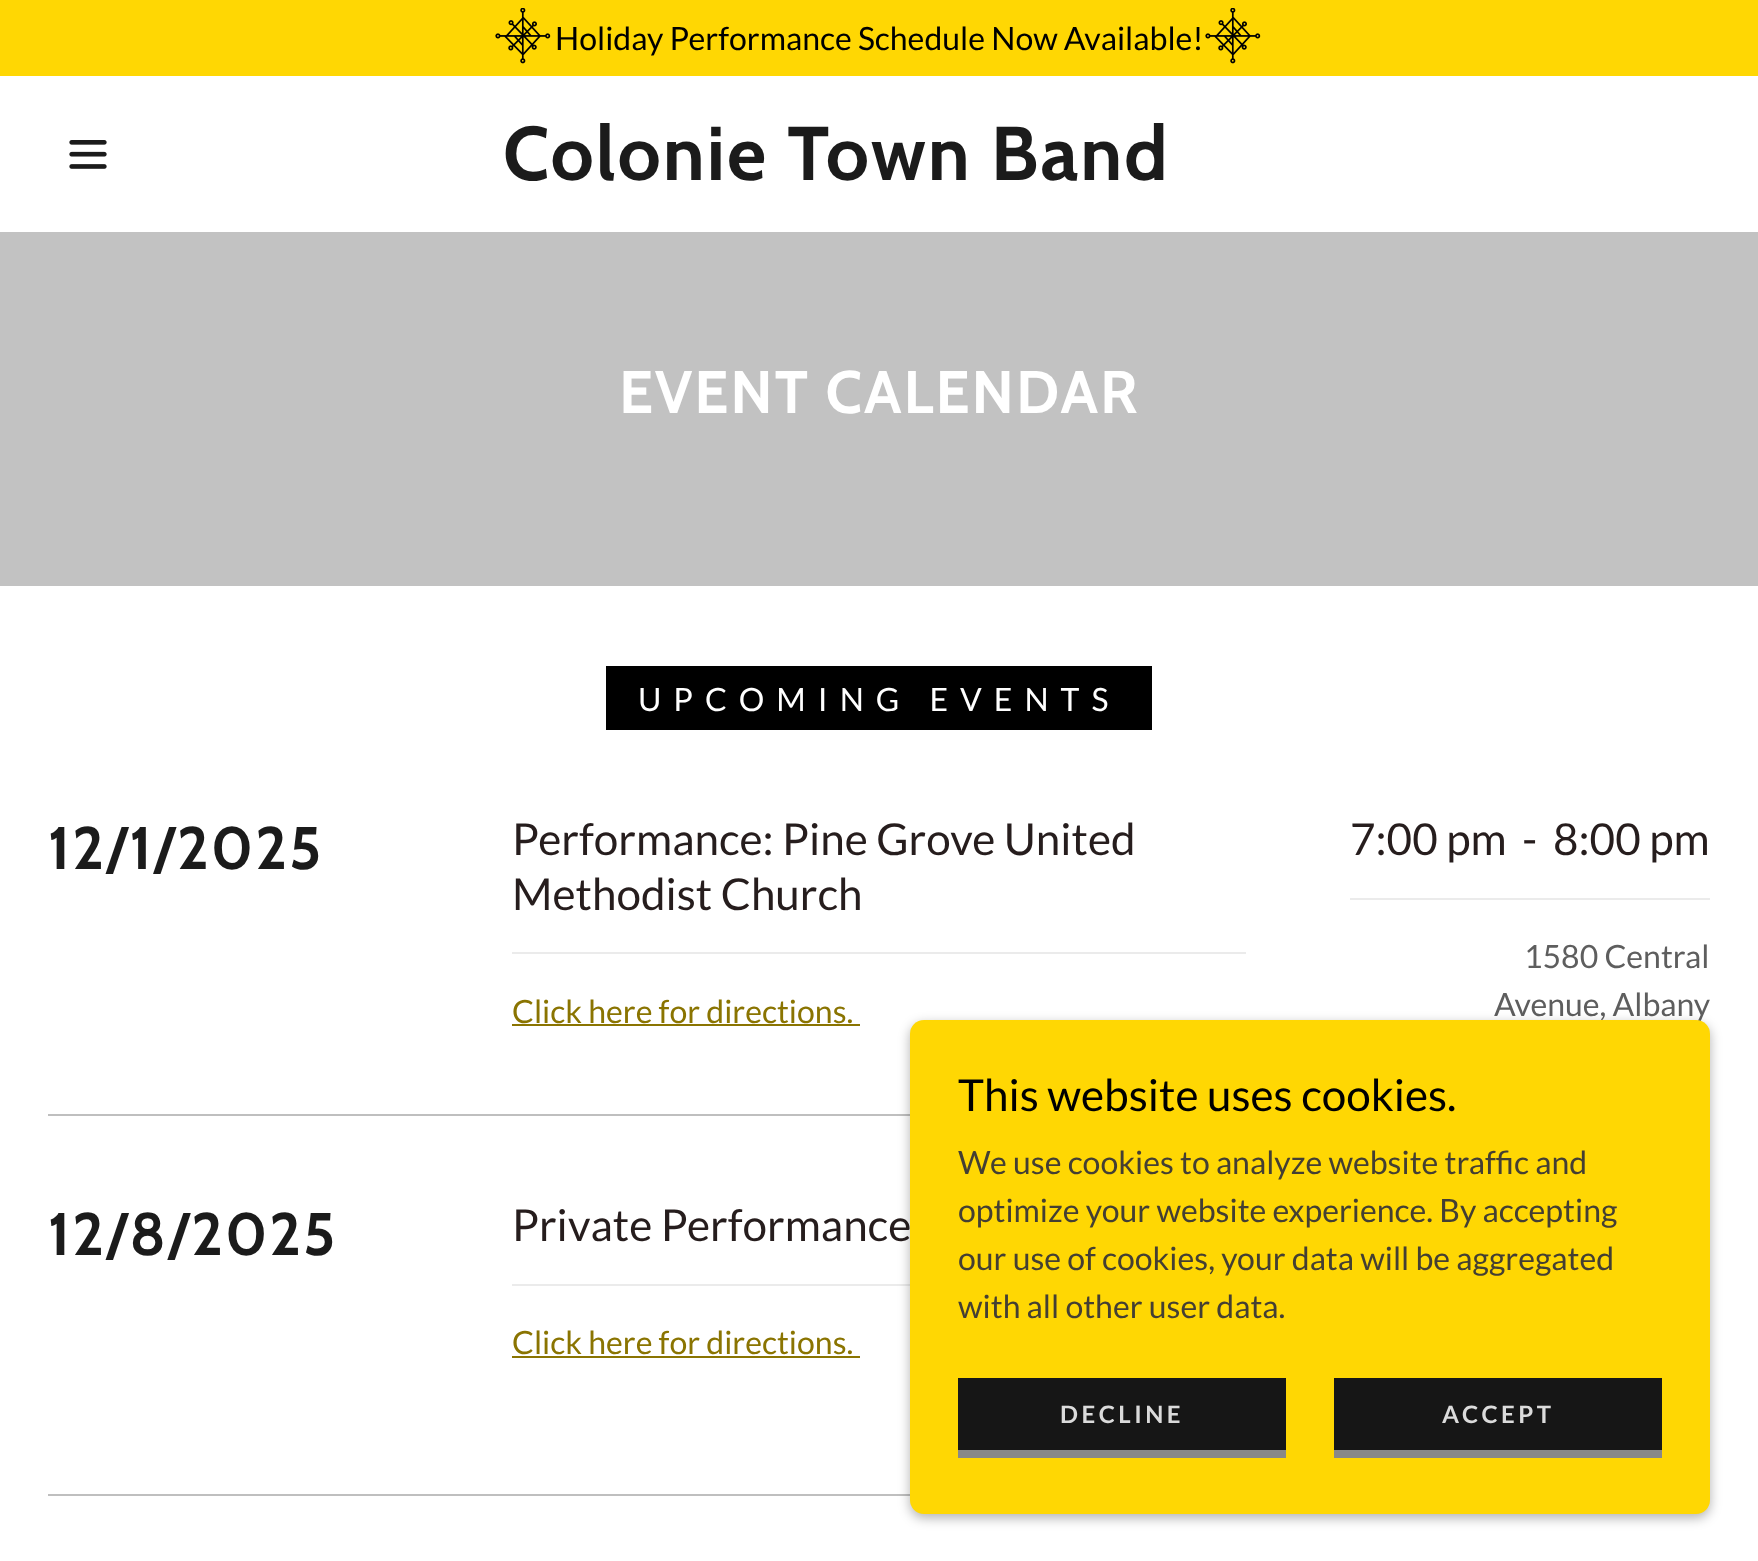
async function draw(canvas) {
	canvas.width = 1758;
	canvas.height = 1561;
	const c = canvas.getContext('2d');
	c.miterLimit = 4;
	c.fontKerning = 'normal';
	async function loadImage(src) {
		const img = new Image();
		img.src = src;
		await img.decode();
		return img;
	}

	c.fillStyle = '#fff';
	c.fillRect(0, 0, 1758, 1561);
	c.fillStyle = '#ffd703';
	c.fillRect(0, 0, 1758, 76);
	c.drawImage(await loadImage('img1.png'), 495, 8, 56, 56);
	c.font = '32px Lato';
	c.fillStyle = '#000';
	c.fillText('Holiday Performance Schedule Now Available!', 555, 50);
	c.drawImage(await loadImage('img1.png'), 1205, 8, 56, 56);
	c.drawImage(await loadImage('img2.png'), 69, 140, 38, 29);
	c.letterSpacing = '2px';
	c.font = 'bold 76px Cabin';
	c.fillStyle = '#1b1b1b';
	c.fillText('Colonie Town Band', 503, 180);
	c.fillStyle = '#c2c2c2';
	c.fillRect(0, 232, 1758, 354);
	c.font = 'bold 60px Cabin';
	c.fillStyle = '#fff';
	c.fillText('EVENT CALENDAR', 619, 413);
	c.fillStyle = '#000';
	c.fillRect(606, 666, 546, 64);
	c.letterSpacing = '12px';
	c.font = '32px Lato';
	c.fillStyle = '#fff';
	c.fillText('UPCOMING EVENTS', 638, 711);
	c.fillStyle = '#bfbfbf';
	c.fillRect(48, 1114, 862, 2);
	c.letterSpacing = '2px';
	c.font = 'bold 60px Cabin';
	c.fillStyle = '#1b1b1b';
	c.fillText('12/1/2025', 48, 869);
	c.fillStyle = '#ebebeb';
	c.fillRect(512, 952, 734, 2);
	c.letterSpacing = '0px';
	c.font = '44px Lato';
	c.fillStyle = '#261d1d';
	c.fillText('Performance: Pine Grove United', 512, 855);
	c.fillText('Methodist Church', 512, 910);
	c.font = '32px Lato';
	c.fillStyle = '#8a7401';
	c.fillText('Click here for directions.', 512, 1023);
	c.fillRect(512, 1024, 348, 2);
	c.fillStyle = '#ebebeb';
	c.fillRect(1350, 898, 360, 2);
	c.font = '44px Lato';
	c.fillStyle = '#261d1d';
	for (const [text, x, y] of [
		['7:00 pm', 1350, 855],
		['-', 1522, 855],
		['8:00 pm', 1553, 855],
	]) {
		c.fillText(text, x, y);
	}
	c.font = '32px Lato';
	c.fillStyle = '#5e5e5e';
	c.fillText('1580 Central', 1524, 968);
	c.fillText('Avenue, Albany', 1494, 1016);
	c.fillStyle = '#bfbfbf';
	c.fillRect(48, 1494, 862, 2);
	c.letterSpacing = '2px';
	c.font = 'bold 60px Cabin';
	c.fillStyle = '#1b1b1b';
	c.fillText('12/8/2025', 48, 1255);
	c.fillStyle = '#ebebeb';
	c.fillRect(512, 1284, 398, 2);
	c.letterSpacing = '0px';
	c.font = '44px Lato';
	c.fillStyle = '#261d1d';
	c.fillText('Private Performance', 512, 1241);
	c.font = '32px Lato';
	c.fillStyle = '#8a7401';
	c.fillText('Click here for directions.', 512, 1354);
	c.fillRect(512, 1356, 348, 2);
	c.fillStyle = '#0000004d';
	c.filter = 'blur(6px)';
	c.beginPath();
	c.roundRect(910, 1024, 800, 494, 14);
	c.fill();
	c.filter = 'none';
	c.fillStyle = '#ffd703';
	c.beginPath();
	c.roundRect(910, 1020, 800, 494, 14);
	c.fill();
	c.font = '44px Lato';
	c.fillStyle = '#000';
	c.fillText('This website uses cookies.', 958, 1111);
	c.font = '32px Lato';
	c.fillStyle = '#443f33';
	for (const [text, x, y] of [
		['We use cookies to analyze website traffic and', 958, 1174],
		['optimize your website experience. By accepting', 958, 1222],
		['our use of cookies, your data will be aggregated', 958, 1270],
		['with all other user data.', 958, 1318],
	]) {
		c.fillText(text, x, y);
	}
	c.fillStyle = '#161616';
	c.fillRect(958, 1378, 328, 72);
	c.fillStyle = '#898989';
	c.fillRect(958, 1450, 328, 8);
	c.letterSpacing = '3.5px';
	c.font = 'bold 24px Lato';
	c.fillStyle = '#dbdbdb';
	c.fillText('DECLINE', 1060, 1423);
	c.fillStyle = '#161616';
	c.fillRect(1334, 1378, 328, 72);
	c.fillStyle = '#898989';
	c.fillRect(1334, 1450, 328, 8);
	c.fillStyle = '#dbdbdb';
	c.fillText('ACCEPT', 1442, 1423);
}

draw(document.querySelector('canvas'));
